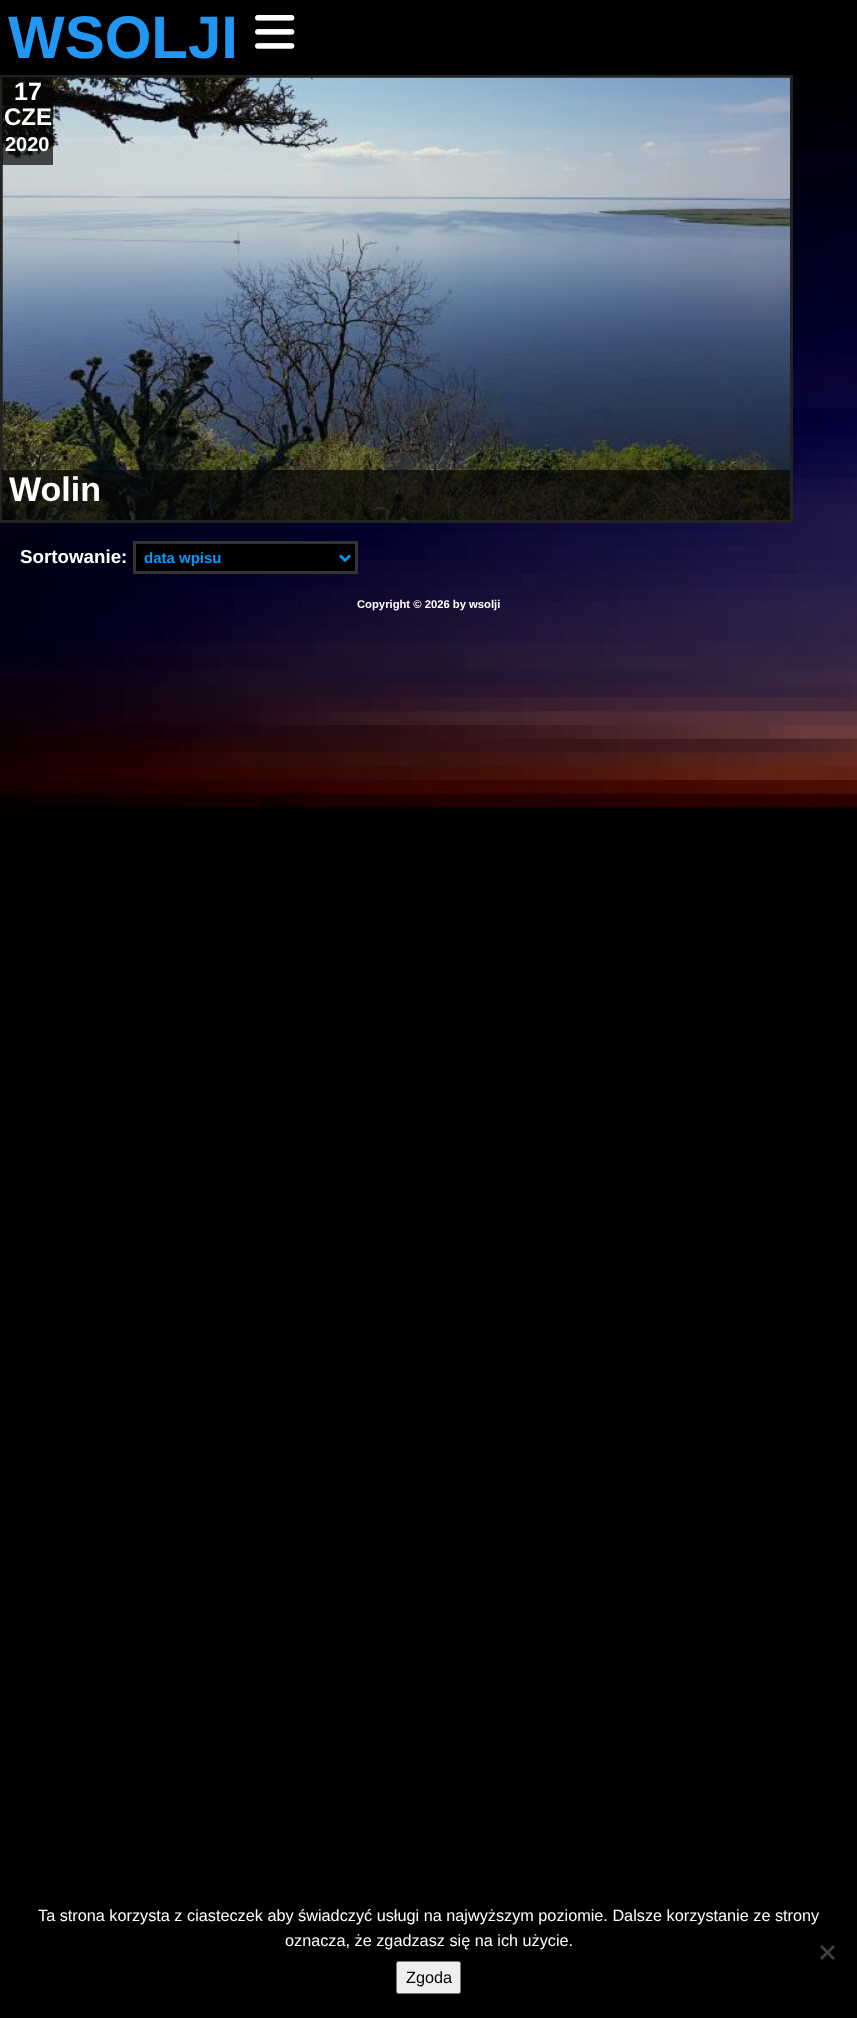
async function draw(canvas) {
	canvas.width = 857;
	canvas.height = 2018;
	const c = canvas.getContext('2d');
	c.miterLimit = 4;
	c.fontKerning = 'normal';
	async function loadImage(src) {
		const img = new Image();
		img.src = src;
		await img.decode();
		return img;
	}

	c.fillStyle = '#000';
	c.fillRect(0, 0, 857, 2018);
	c.drawImage(await loadImage('img1.png'), 0, 80, 857, 729);
	c.font = 'bold 60px Liberation Sans';
	c.fillStyle = '#2196f3';
	c.fillText('WSOLJI', 8, 58);
	c.drawImage(await loadImage('img2.png'), 255, 15, 40, 34);
	c.strokeStyle = '#222';
	c.lineWidth = 3;
	c.strokeRect(1.5, 76.5, 790, 445);
	c.drawImage(await loadImage('img3.png'), 2, 77, 788, 443);
	c.fillStyle = '#060606b3';
	c.fillRect(2, 77, 51, 88);
	c.font = 'bold 25px Liberation Sans';
	c.fillStyle = '#fff';
	c.fillText('17', 14, 100);
	c.font = 'bold 24px Liberation Sans';
	c.fillText('CZE', 4, 125);
	c.font = 'bold 20px Liberation Sans';
	c.fillText('2020', 5, 151);
	c.fillStyle = '#060606b3';
	c.fillRect(2, 470, 788, 50);
	c.font = 'bold 34px Liberation Sans';
	c.fillStyle = '#fff';
	c.fillText('Wolin', 9, 501);
	c.font = 'bold 18.75px Liberation Sans';
	c.fillText('Sortowanie:', 20, 563);
	c.fillStyle = '#000';
	c.beginPath();
	c.rect(134.5, 542.5, 222, 30);
	c.fill();
	c.strokeStyle = '#333';
	c.stroke();
	c.beginPath();
	c.moveTo(340, 555.5);
	c.lineTo(345, 560.5);
	c.lineTo(350, 555.5);
	c.strokeStyle = '#09f';
	c.lineWidth = 2.5;
	c.stroke();
	c.font = 'bold 15px Liberation Sans';
	c.fillStyle = '#09f';
	c.fillText('data wpisu', 144, 563);
	c.font = 'bold 11.25px Liberation Sans';
	c.fillStyle = '#fff';
	c.fillText('Copyright © 2026 by wsolji', 357, 608);
	c.font = '16.25px Liberation Sans';
	c.fillText('Ta strona korzysta z ciasteczek aby świadczyć usługi na najwyższym poziomie. Dalsze korzystanie ze strony', 38, 1921);
	c.fillText('oznacza, że zgadzasz się na ich użycie.', 285, 1946);
	c.fillStyle = '#404040';
	c.beginPath();
	c.moveTo(833, 1945);
	c.lineTo(835, 1947);
	c.lineTo(822, 1960);
	c.lineTo(820, 1958);
	c.closePath();
	c.fill();
	c.beginPath();
	c.moveTo(820, 1947);
	c.lineTo(822, 1945);
	c.lineTo(835, 1958);
	c.lineTo(833, 1960);
	c.closePath();
	c.fill();
	c.fillStyle = '#efefef';
	c.beginPath();
	c.roundRect(396.5, 1961.5, 64, 32, 2);
	c.fill();
	c.strokeStyle = '#767676';
	c.lineWidth = 1;
	c.stroke();
	c.fillStyle = '#000';
	c.fillText('Zgoda', 406, 1983);
}

draw(document.querySelector('canvas'));
